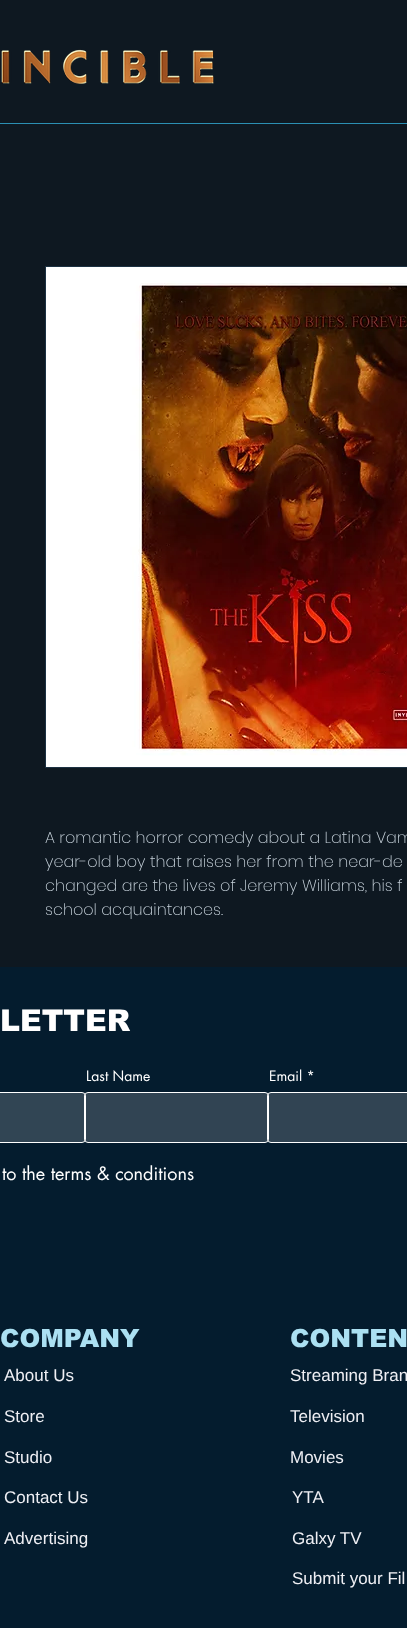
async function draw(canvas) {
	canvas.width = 407;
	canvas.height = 1628;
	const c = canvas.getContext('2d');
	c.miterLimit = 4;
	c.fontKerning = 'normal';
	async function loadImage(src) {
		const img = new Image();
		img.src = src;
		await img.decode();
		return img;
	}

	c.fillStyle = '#0e1821';
	c.fillRect(0, 0, 407, 1628);
	c.drawImage(await loadImage('img1.png'), 1, 49, 213, 35);
	c.fillStyle = '#2b8fb3';
	c.fillRect(0, 123, 407, 1);
	c.strokeStyle = '#1c3142';
	c.strokeRect(45.5, 266.5, 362, 501);
	c.drawImage(await loadImage('img2.png'), 46, 267, 361, 500);
	c.font = '200 16px Poppins';
	c.fillStyle = '#c5d0d9';
	for (const [text, x, y] of [
		['A romantic horror comedy about a Latina Vam', 45, 843],
		['year-old boy that raises her from the near-de', 45, 867],
		['changed are the lives of Jeremy Williams, his f', 45, 891],
		['school acquaintances.', 45, 915],
	]) {
		c.fillText(text, x, y);
	}
	c.fillStyle = '#041c2e';
	c.fillRect(0, 967, 407, 661);
	c.font = '900 30px arial';
	c.fillStyle = '#fff';
	c.fillText('LETTER', 0, 1031);
	c.font = '14px futura';
	c.fillText('Last Name', 86, 1081);
	c.fillStyle = '#314554';
	c.beginPath();
	c.roundRect(-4.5, 1092.5, 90, 50, 3.5);
	c.fill();
	c.strokeStyle = '#fff';
	c.stroke();
	c.fillStyle = '#ffffff2e';
	c.beginPath();
	c.roundRect(84.5, 1092.5, 184, 50, 3.5);
	c.fill();
	c.stroke();
	c.fillStyle = '#fff';
	c.fillText('Email *', 269, 1081);
	c.fillStyle = '#ffffff2e';
	c.beginPath();
	c.roundRect(267.5, 1092.5, 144, 50, 3.5);
	c.fill();
	c.stroke();
	c.font = '18px futura';
	c.fillStyle = '#fff';
	c.fillText('to the terms & conditions', 2, 1180);
	c.font = '900 25px arial';
	c.fillStyle = '#abe0f2';
	c.fillText('COMPANY', 0, 1347);
	c.fillText('CONTEN', 290, 1347);
	c.font = '17px Liberation Sans';
	c.fillStyle = '#efeff4';
	for (const [text, x, y] of [
		['About Us', 4, 1381],
		['Streaming Bran', 290, 1381],
		['Store', 4, 1422],
		['Television', 290, 1422],
		['Studio', 4, 1463],
		['Movies', 290, 1463],
		['Contact Us', 4, 1503],
		['YTA', 292, 1503],
		['Galxy TV', 292, 1544],
		['Submit your Fil', 292, 1584],
		['Advertising', 4, 1544],
	]) {
		c.fillText(text, x, y);
	}
}

draw(document.querySelector('canvas'));
